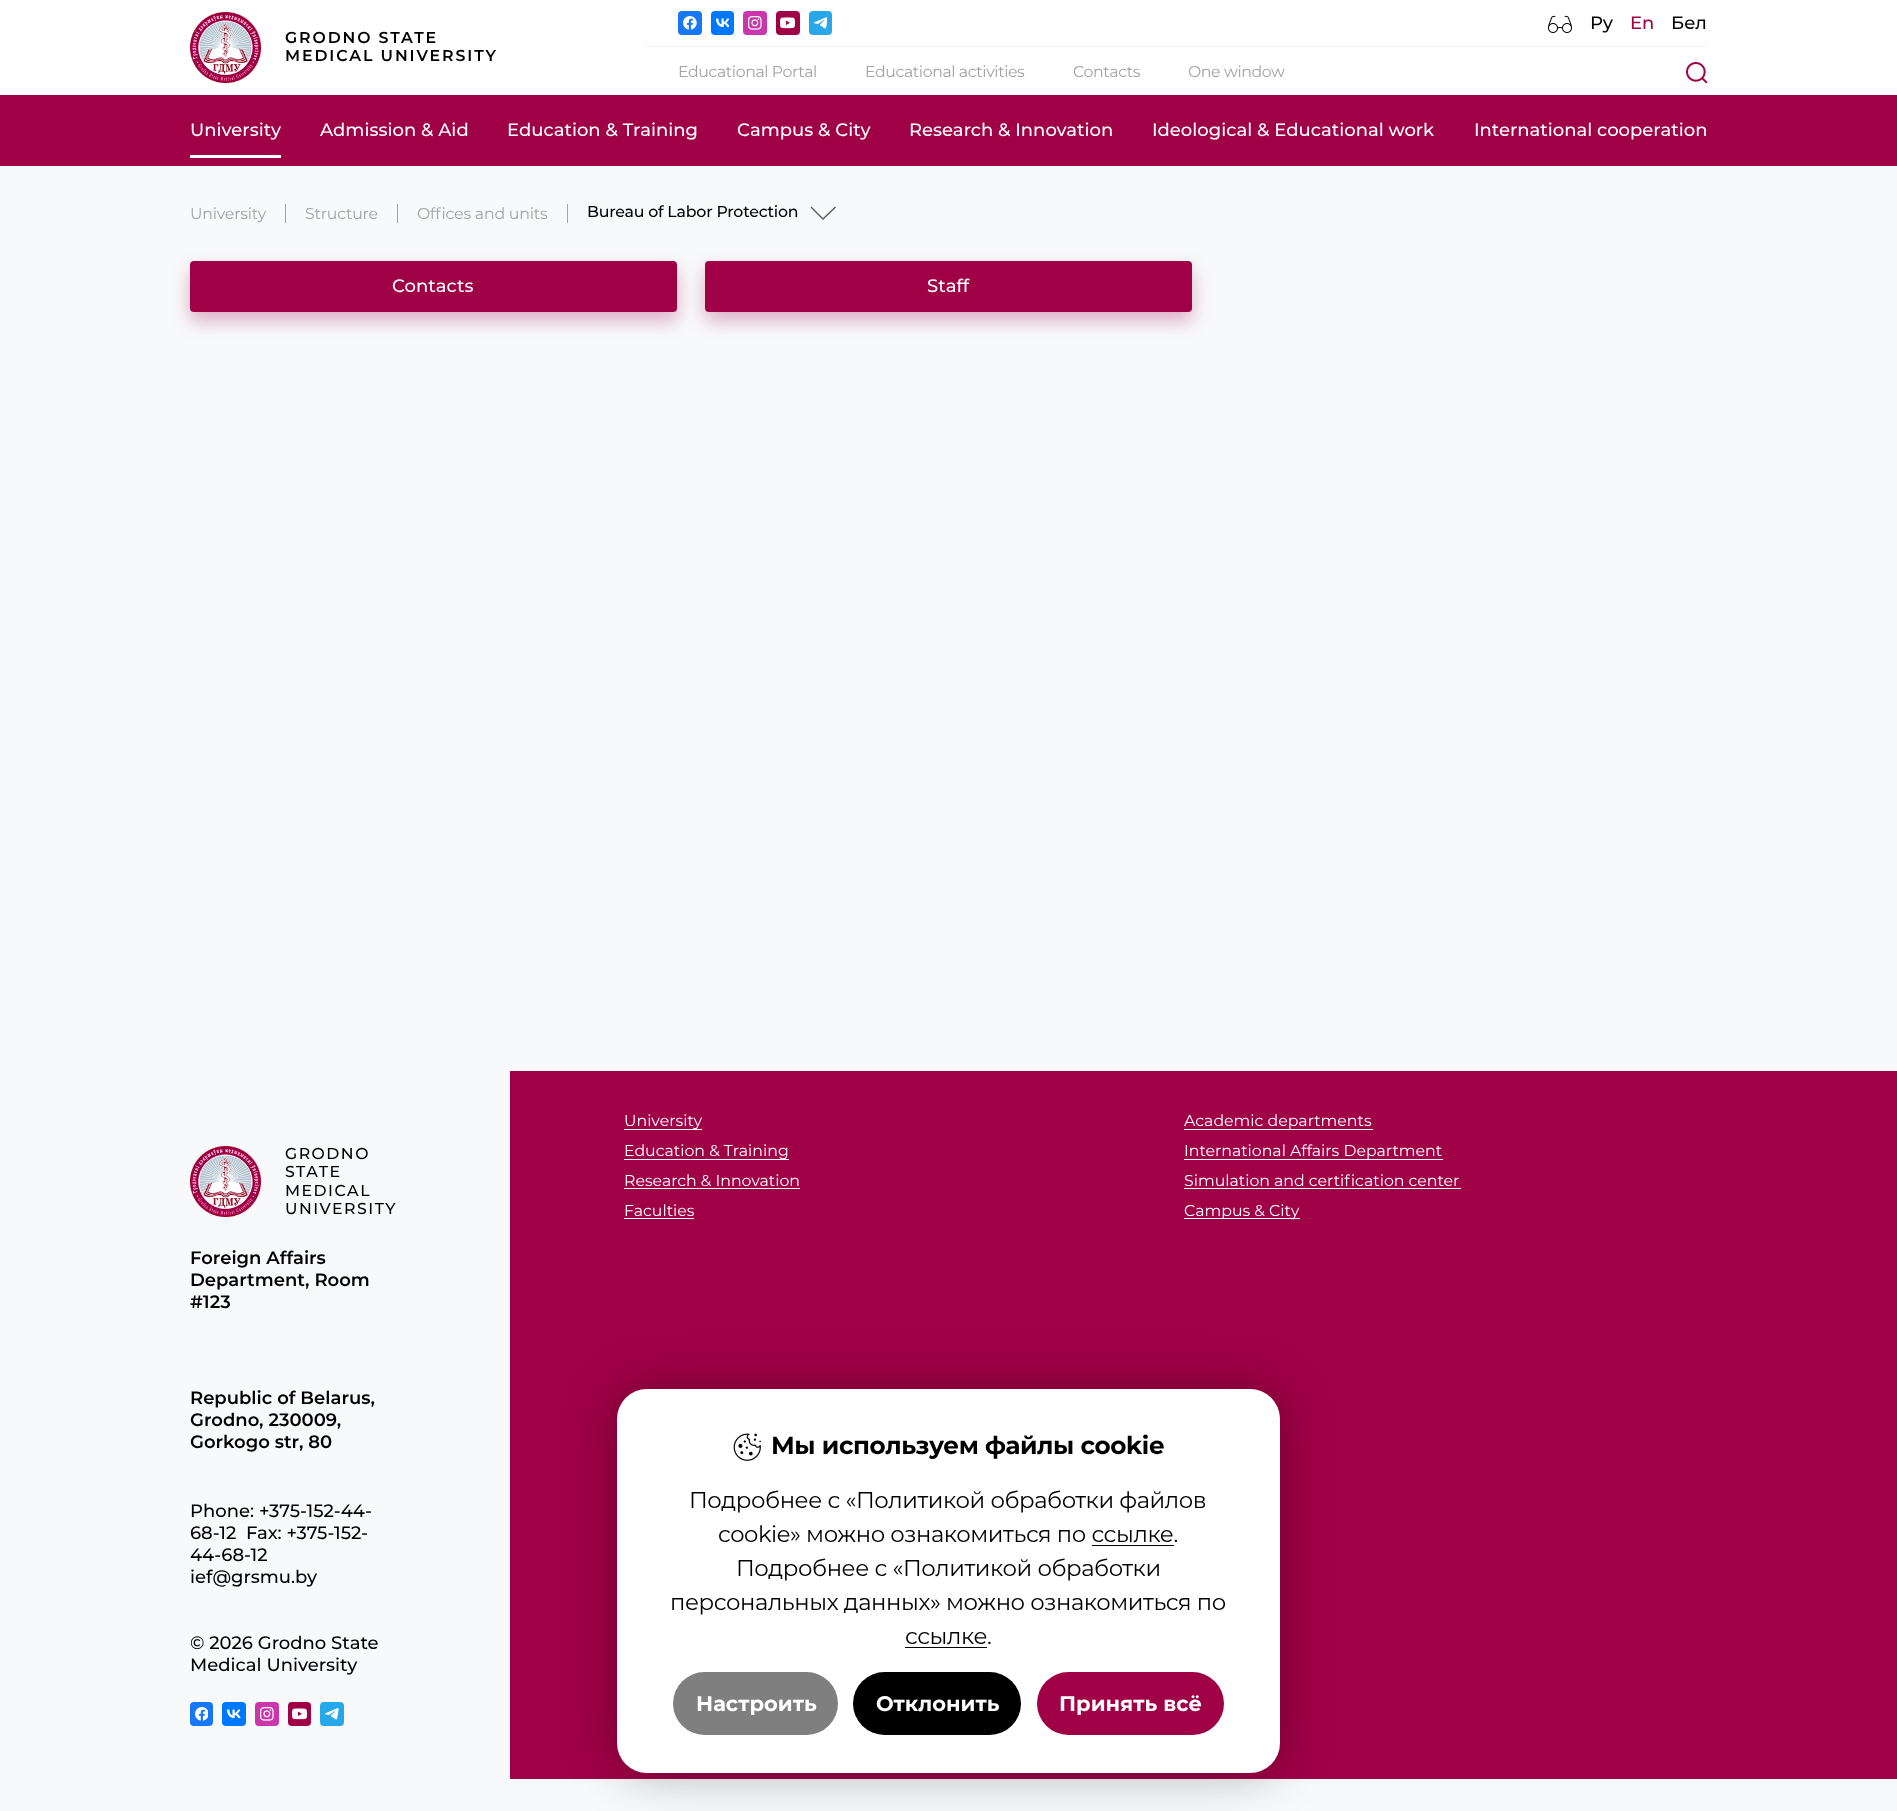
async function draw(canvas) {
	canvas.width = 1897;
	canvas.height = 1811;
	const c = canvas.getContext('2d');
	c.miterLimit = 4;
	c.fontKerning = 'normal';
	async function loadImage(src) {
		const img = new Image();
		img.src = src;
		await img.decode();
		return img;
	}

	c.fillStyle = '#f8f9fa';
	c.fillRect(0, 0, 1897, 1811);
	c.fillStyle = '#fff';
	c.fillRect(0, 0, 1897, 95);
	c.drawImage(await loadImage('img1.png'), 190, 12, 71, 71);
	c.letterSpacing = '1.9px';
	c.font = '600 15.75px Montserrat';
	c.fillStyle = '#000';
	c.fillText('GRODNO STATE', 285, 43);
	c.fillText('MEDICAL UNIVERSITY', 285, 61);
	c.fillStyle = '#f3f3f3';
	c.fillRect(645, 46, 1062, 1);
	c.fillStyle = '#1877f2';
	c.beginPath();
	c.roundRect(678, 11, 24, 24, 4);
	c.fill();
	c.drawImage(await loadImage('img2.png'), 683, 16, 14, 14);
	c.fillStyle = '#07f';
	c.beginPath();
	c.roundRect(711, 11, 23, 24, 4);
	c.fill();
	c.drawImage(await loadImage('img3.png'), 716, 18, 13, 10);
	c.fillStyle = '#c837ab';
	c.beginPath();
	c.roundRect(743, 11, 24, 24, 4);
	c.fill();
	c.drawImage(await loadImage('img4.png'), 748, 16, 14, 14);
	c.fillStyle = '#a00146';
	c.beginPath();
	c.roundRect(776, 11, 24, 24, 4);
	c.fill();
	c.drawImage(await loadImage('img5.png'), 780, 17, 15, 12);
	c.fillStyle = '#28a8e9';
	c.beginPath();
	c.roundRect(809, 11, 23, 24, 4);
	c.fill();
	c.drawImage(await loadImage('img6.png'), 814, 17, 13, 12);
	c.drawImage(await loadImage('img7.png'), 1548, 15, 24, 18);
	c.letterSpacing = '0px';
	c.font = '500 18px Montserrat';
	c.fillStyle = '#000';
	c.fillText('Ру', 1590, 29);
	c.fillStyle = '#a00146';
	c.fillText('En', 1630, 29);
	c.fillStyle = '#000';
	c.fillText('Бел', 1671, 29);
	c.letterSpacing = '-0.4px';
	c.font = '15.75px Montserrat';
	c.fillStyle = '#a3a3a3';
	for (const [text, x, y] of [
		['Educational Portal', 678, 77],
		['Educational activities', 865, 77],
		['Contacts', 1073, 77],
		['One window', 1188, 77],
	]) {
		c.fillText(text, x, y);
	}
	c.drawImage(await loadImage('img8.png'), 1686, 62, 21, 21);
	c.fillStyle = '#a00146';
	c.fillRect(0, 95, 1897, 71);
	c.letterSpacing = '0px';
	c.font = '500 18px Montserrat';
	c.fillStyle = '#fff';
	c.fillText('University', 190, 136);
	c.fillRect(190, 155, 91, 3);
	for (const [text, x, y] of [
		['Admission & Aid', 320, 136],
		['Education & Training', 507, 136],
		['Campus & City', 737, 136],
		['Research & Innovation', 909, 136],
		['Ideological & Educational work', 1152, 136],
		['International cooperation', 1474, 136],
	]) {
		c.fillText(text, x, y);
	}
	c.letterSpacing = '-0.2px';
	c.font = '15.75px Montserrat';
	c.fillStyle = '#a3a3a3';
	c.fillText('University', 190, 219);
	c.fillRect(285, 204, 1, 19);
	c.fillText('Structure', 305, 219);
	c.fillRect(397, 204, 1, 19);
	c.fillText('Offices and units', 417, 219);
	c.fillRect(567, 204, 1, 19);
	c.font = '500 15.75px Montserrat';
	c.fillStyle = '#000';
	c.fillText('Bureau of Labor Protection', 587, 217);
	c.fillStyle = '#606060';
	c.beginPath();
	c.moveTo(835, 206.5);
	c.lineTo(823, 218);
	c.lineTo(811.5, 206.5);
	c.lineTo(810.5, 207.5);
	c.lineTo(823, 220);
	c.lineTo(836, 207.5);
	c.closePath();
	c.fill();
	c.fillStyle = '#a301484d';
	c.filter = 'blur(9px)';
	c.beginPath();
	c.roundRect(190, 270, 487, 51, 4);
	c.fill();
	c.filter = 'none';
	c.fillStyle = '#a00146';
	c.beginPath();
	c.roundRect(190, 261, 487, 51, 4);
	c.fill();
	c.letterSpacing = '0px';
	c.font = '500 18px Montserrat';
	c.fillStyle = '#fff';
	c.fillText('Contacts', 392, 292);
	c.fillStyle = '#a301484d';
	c.filter = 'blur(9px)';
	c.beginPath();
	c.roundRect(705, 270, 487, 51, 4);
	c.fill();
	c.filter = 'none';
	c.fillStyle = '#a00146';
	c.beginPath();
	c.roundRect(705, 261, 487, 51, 4);
	c.fill();
	c.fillStyle = '#fff';
	c.fillText('Staff', 927, 292);
	c.drawImage(await loadImage('img9.png'), 190, 1146, 71, 71);
	c.letterSpacing = '1.5px';
	c.font = '500 15.75px Montserrat';
	c.fillStyle = '#000';
	for (const [text, x, y] of [
		['GRODNO', 285, 1159],
		['STATE', 285, 1177],
		['MEDICAL', 285, 1196],
		['UNIVERSITY', 285, 1214],
	]) {
		c.fillText(text, x, y);
	}
	c.letterSpacing = '0px';
	c.font = '600 18px Montserrat';
	for (const [text, x, y] of [
		['Foreign Affairs', 190, 1264],
		['Department, Room', 190, 1286],
		['#123', 190, 1308],
		['Republic of Belarus,', 190, 1404],
		['Grodno, 230009,', 190, 1426],
		['Gorkogo str, 80', 190, 1448],
	]) {
		c.fillText(text, x, y);
	}
	c.font = '500 18px Montserrat';
	for (const [text, x, y] of [
		['Phone: +375-152-44-', 190, 1517],
		['68-12  Fax: +375-152-', 190, 1539],
		['44-68-12', 190, 1561],
		['ief@grsmu.by', 190, 1583],
		['© 2026 Grodno State', 190, 1649],
		['Medical University', 190, 1671],
	]) {
		c.fillText(text, x, y);
	}
	c.fillStyle = '#1877f2';
	c.beginPath();
	c.roundRect(190, 1702, 23, 24, 4);
	c.fill();
	c.drawImage(await loadImage('img10.png'), 195, 1707, 13, 14);
	c.fillStyle = '#07f';
	c.beginPath();
	c.roundRect(222, 1702, 24, 24, 4);
	c.fill();
	c.drawImage(await loadImage('img11.png'), 227, 1709, 14, 10);
	c.fillStyle = '#c837ab';
	c.beginPath();
	c.roundRect(255, 1702, 24, 24, 4);
	c.fill();
	c.drawImage(await loadImage('img4.png'), 260, 1707, 14, 14);
	c.fillStyle = '#a00146';
	c.beginPath();
	c.roundRect(288, 1702, 23, 24, 4);
	c.fill();
	c.drawImage(await loadImage('img5.png'), 292, 1708, 15, 12);
	c.fillStyle = '#28a8e9';
	c.beginPath();
	c.roundRect(320, 1702, 24, 24, 4);
	c.fill();
	c.drawImage(await loadImage('img12.png'), 325, 1708, 14, 12);
	c.fillStyle = '#a00146';
	c.fillRect(510, 1071, 1387, 708);
	c.fillStyle = '#fff';
	c.fillRect(624, 1129, 78, 1);
	c.font = '15.75px Montserrat';
	c.fillText('University', 624, 1126);
	c.fillRect(1184, 1129, 189, 1);
	c.fillText('Academic departments', 1184, 1126);
	c.fillRect(624, 1159, 165, 1);
	c.fillText('Education & Training', 624, 1156);
	c.fillRect(1184, 1159, 259, 1);
	c.fillText('International Affairs Department', 1184, 1156);
	c.fillText('Research & Innovation', 624, 1186);
	c.fillRect(624, 1188, 176, 1);
	c.fillText('Simulation and certification center', 1184, 1186);
	c.fillRect(1184, 1188, 277, 1);
	c.fillText('Faculties', 624, 1216);
	c.fillRect(624, 1218, 70, 1);
	c.fillRect(1184, 1218, 116, 1);
	c.fillText('Campus & City', 1184, 1216);
	c.fillStyle = '#0000004d';
	c.filter = 'blur(25px)';
	c.beginPath();
	c.roundRect(617, 1389, 663, 384, 30);
	c.fill();
	c.filter = 'none';
	c.fillStyle = '#fff';
	c.beginPath();
	c.roundRect(617, 1389, 663, 384, 30);
	c.fill();
	c.drawImage(await loadImage('img13.png'), 733, 1433, 28, 28);
	c.letterSpacing = '-0.4px';
	c.font = 'bold 24.7px Montserrat';
	c.fillStyle = '#000';
	c.fillText('Мы используем файлы cookie', 771, 1454);
	c.font = '22.75px Montserrat';
	c.fillText('Подробнее с «Политикой обработки файлов', 689, 1508);
	c.fillText('cookie» можно ознакомиться по ссылке.', 718, 1542);
	c.fillRect(1092, 1545, 82, 1);
	for (const [text, x, y] of [
		['Подробнее с «Политикой обработки', 736, 1576],
		['персональных данных» можно ознакомиться по', 670, 1610],
		['ссылке.', 905, 1644],
	]) {
		c.fillText(text, x, y);
	}
	c.fillRect(905, 1647, 82, 1);
	c.fillStyle = '#7f7f7f';
	c.beginPath();
	c.roundRect(673, 1672, 165, 63, 31.5);
	c.fill();
	c.letterSpacing = '0px';
	c.font = 'bold 21px Montserrat';
	c.fillStyle = '#fff';
	c.fillText('Настроить', 696, 1711);
	c.fillStyle = '#000';
	c.beginPath();
	c.roundRect(853, 1672, 168, 63, 31.5);
	c.fill();
	c.fillStyle = '#fff';
	c.fillText('Отклонить', 876, 1711);
	c.fillStyle = '#a00146';
	c.beginPath();
	c.roundRect(1037, 1672, 187, 63, 31.5);
	c.fill();
	c.fillStyle = '#fff';
	c.fillText('Принять всё', 1059, 1711);
}

draw(document.querySelector('canvas'));
